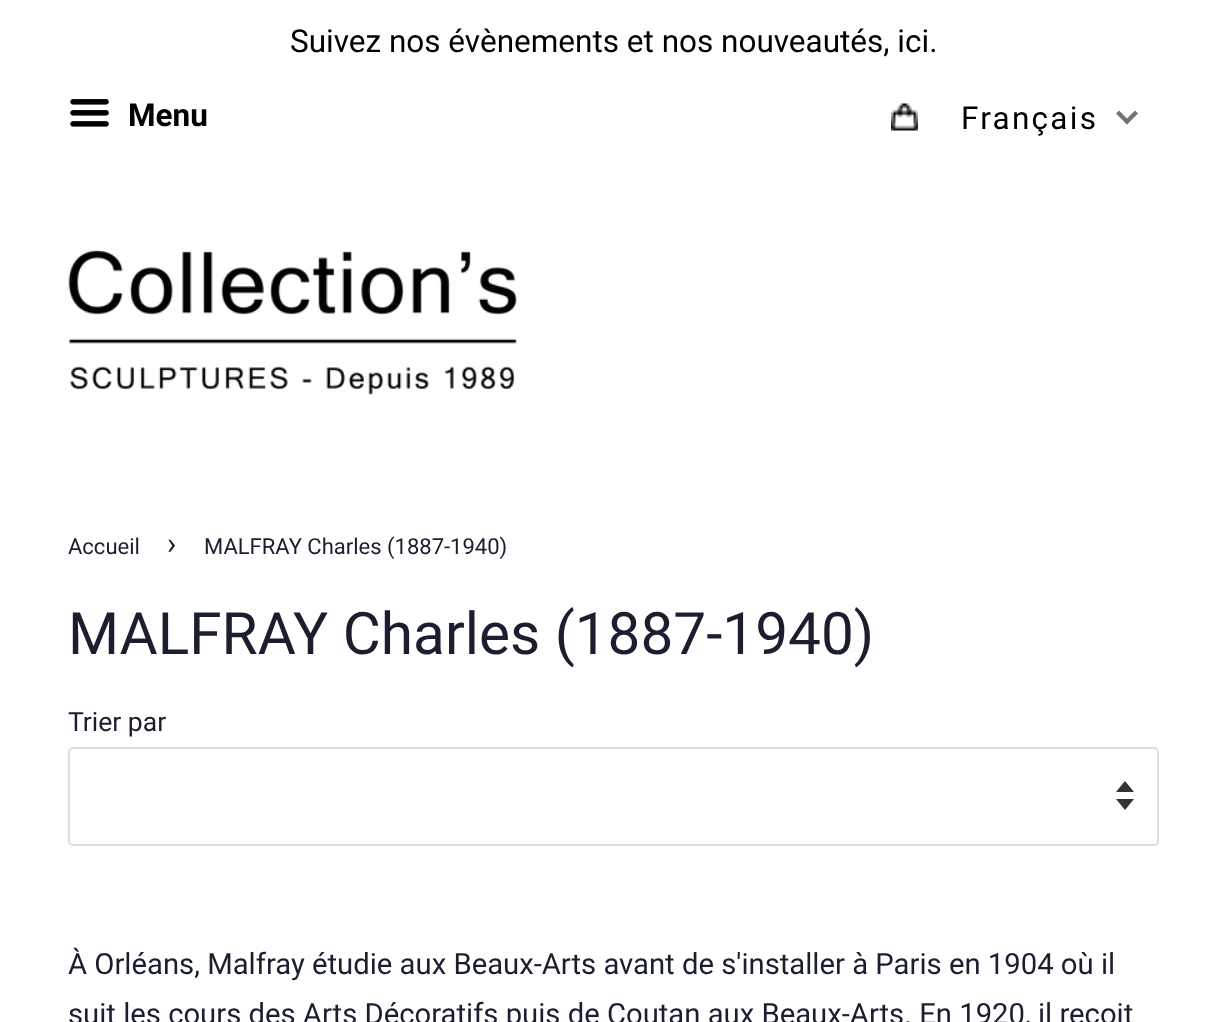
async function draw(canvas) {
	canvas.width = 1226;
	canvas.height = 1022;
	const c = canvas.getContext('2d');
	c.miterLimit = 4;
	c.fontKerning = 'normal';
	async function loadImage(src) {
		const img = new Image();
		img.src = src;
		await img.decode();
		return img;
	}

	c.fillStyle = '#fff';
	c.fillRect(0, 0, 1226, 1022);
	c.font = '31.5px Roboto';
	c.fillStyle = '#000';
	c.fillText('Suivez nos évènements et nos nouveautés, ici.', 290, 52);
	c.drawImage(await loadImage('img1.png'), 70, 99, 39, 28);
	c.font = 'bold 31.5px Roboto';
	c.fillText('Menu', 128, 126);
	c.drawImage(await loadImage('img2.png'), 891, 103, 27, 28);
	c.letterSpacing = '2.25px';
	c.font = '31.5px Roboto';
	c.fillText('Français', 961, 129);
	c.fillStyle = '#747474';
	c.beginPath();
	c.moveTo(1135, 110.5);
	c.lineTo(1138, 113.5);
	c.lineTo(1127, 124.5);
	c.lineTo(1124, 121.5);
	c.closePath();
	c.fill();
	c.beginPath();
	c.moveTo(1119, 110.5);
	c.lineTo(1130, 121.5);
	c.lineTo(1127, 124.5);
	c.lineTo(1116, 113.5);
	c.closePath();
	c.fill();
	c.drawImage(await loadImage('img3.png'), 68, 250, 449, 145);
	c.letterSpacing = '0px';
	c.font = '22px Roboto';
	c.fillStyle = '#1b1e2f';
	c.fillText('Accueil', 68, 554);
	c.font = '31px Roboto';
	c.fillText('›', 167, 554);
	c.font = '22px Roboto';
	c.fillText('MALFRAY Charles (1887-1940)', 204, 554);
	c.font = '58.5px Roboto';
	c.fillText('MALFRAY Charles (1887-1940)', 68, 654);
	c.font = '26.5px Roboto';
	c.fillText('Trier par', 68, 731);
	c.fillStyle = '#333';
	c.beginPath();
	c.moveTo(1116, 799);
	c.lineTo(1125, 810);
	c.lineTo(1134, 799);
	c.closePath();
	c.moveTo(1125, 781);
	c.lineTo(1116, 792);
	c.lineTo(1134, 792);
	c.closePath();
	c.fill();
	c.beginPath();
	c.roundRect(69, 748, 1089, 97, 4);
	c.strokeStyle = '#dddde0';
	c.lineWidth = 2;
	c.stroke();
	c.font = '29.25px Roboto';
	c.fillStyle = '#1b1e2f';
	c.fillText('À Orléans, Malfray étudie aux Beaux-Arts avant de s\'installer à Paris en 1904 où il', 68, 974);
	c.fillText('suit les cours des Arts Décoratifs puis de Coutan aux Beaux-Arts. En 1920, il reçoit', 68, 1024);
}

draw(document.querySelector('canvas'));
